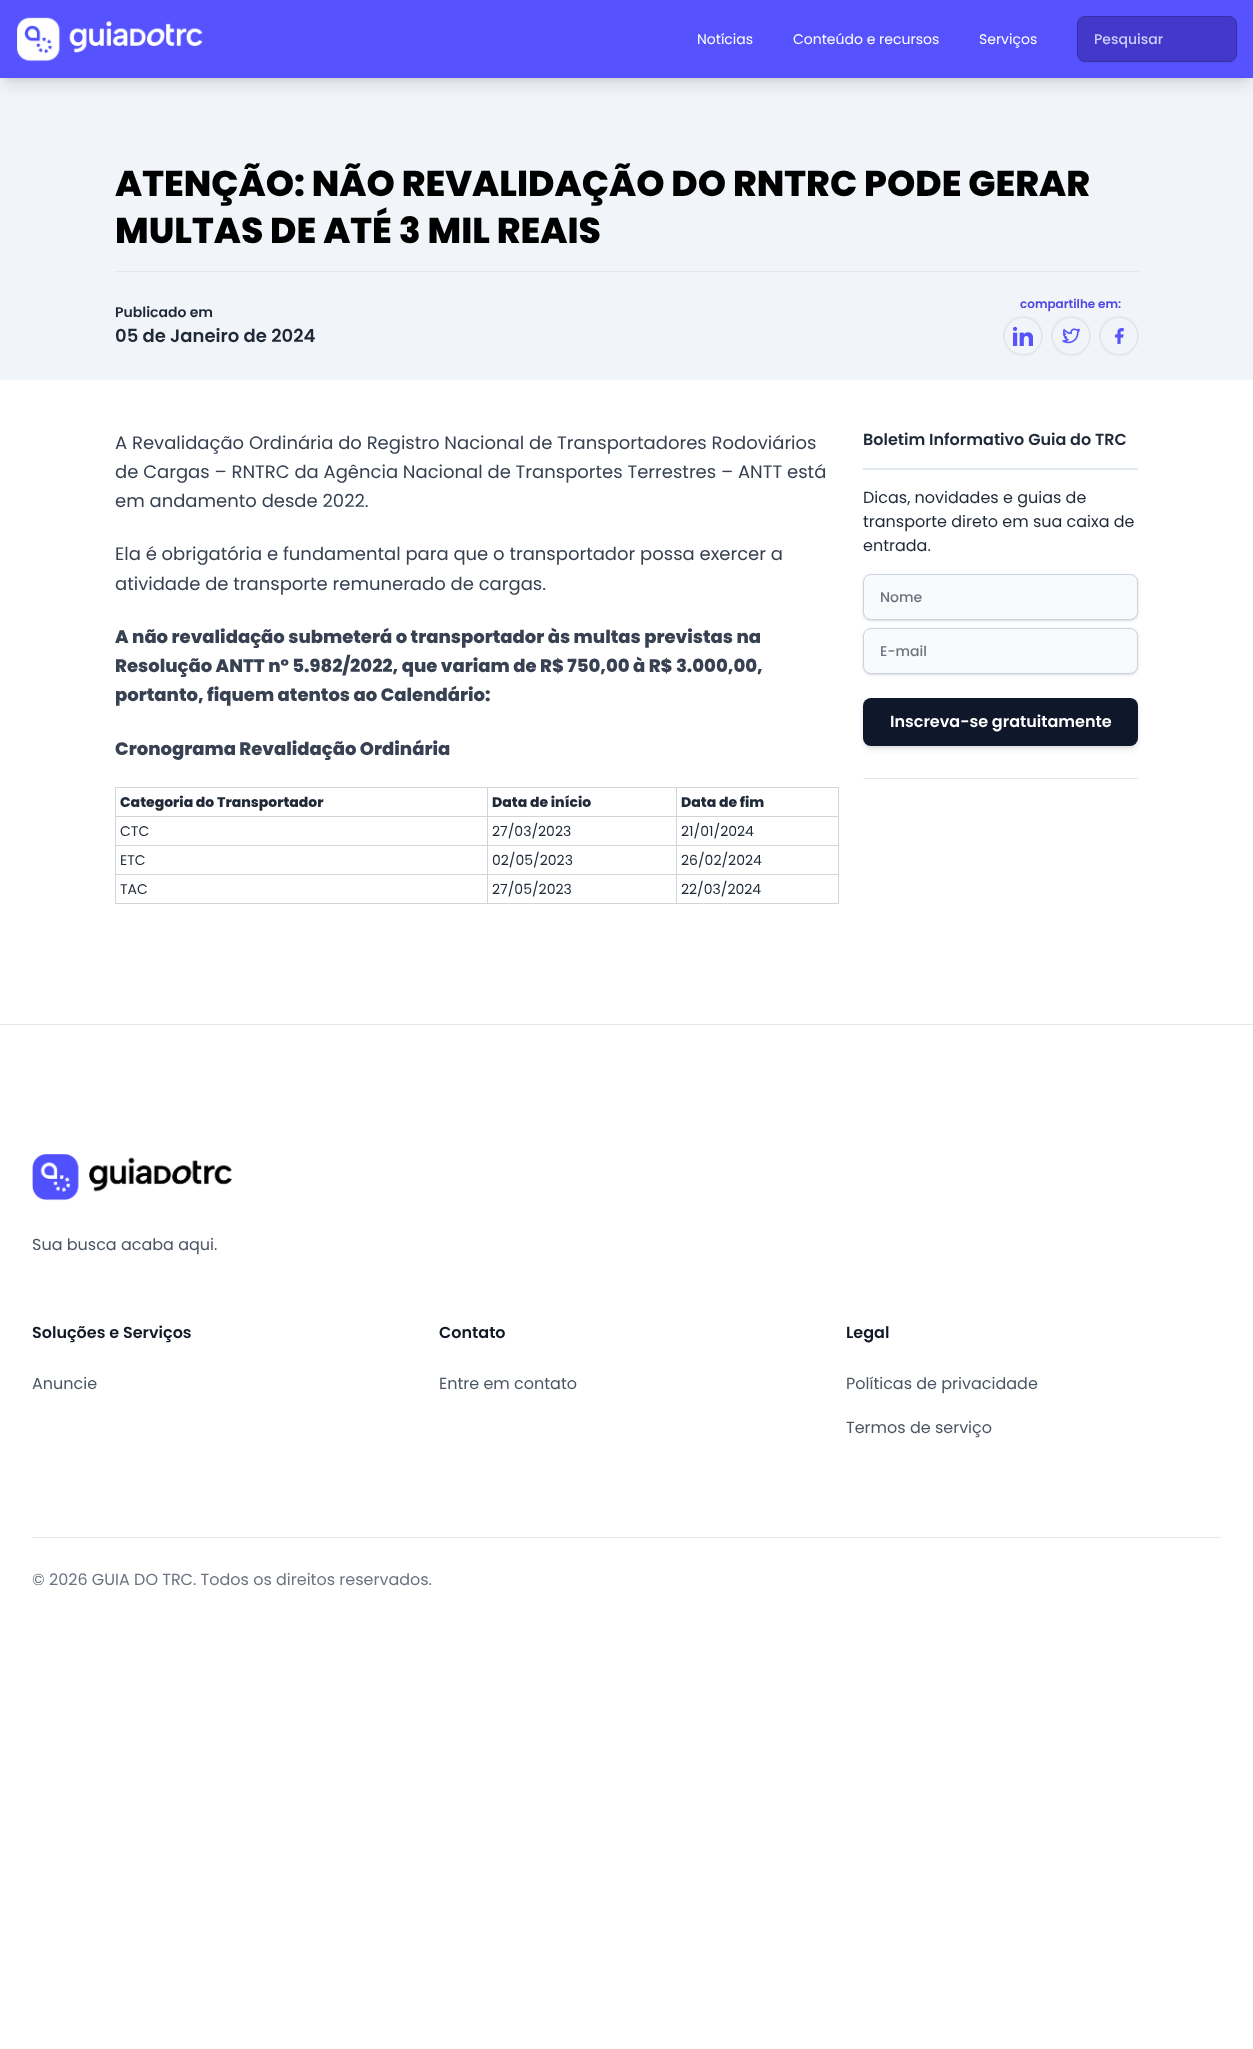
async function draw(canvas) {
	canvas.width = 1253;
	canvas.height = 2049;
	const c = canvas.getContext('2d');
	c.miterLimit = 4;
	c.fontKerning = 'normal';
	async function loadImage(src) {
		const img = new Image();
		img.src = src;
		await img.decode();
		return img;
	}

	c.fillStyle = '#fff';
	c.fillRect(0, 0, 1253, 2049);
	c.fillStyle = '#f1f5f9';
	c.fillRect(0, 78, 1253, 302);
	c.fillStyle = '#0000001a';
	c.filter = 'blur(3px)';
	c.beginPath();
	c.rect(4, 8, 1245, 70);
	c.fill();
	c.filter = 'none';
	c.filter = 'blur(7.5px)';
	c.beginPath();
	c.rect(3, 13, 1247, 72);
	c.fill();
	c.filter = 'none';
	c.fillStyle = '#5552fe';
	c.fillRect(0, 0, 1253, 78);
	c.drawImage(await loadImage('img1.png'), 17, 17, 186, 45);
	c.font = '14px Poppins';
	c.fillStyle = '#fff';
	for (const [text, x, y] of [
		['Notícias', 697, 44],
		['Conteúdo e recursos', 793, 44],
		['Serviços', 979, 44],
	]) {
		c.fillText(text, x, y);
	}
	c.fillStyle = '#0000000d';
	c.filter = 'blur(1px)';
	c.beginPath();
	c.roundRect(1077, 17, 160, 46, 8);
	c.fill();
	c.filter = 'none';
	c.fillStyle = '#4338ca';
	c.beginPath();
	c.roundRect(1077.5, 16.5, 159, 45, 7.5);
	c.fill();
	c.strokeStyle = '#3730a3';
	c.stroke();
	c.font = '500 14px Poppins';
	c.fillStyle = '#c7d2fe';
	c.fillText('Pesquisar', 1094, 44);
	c.font = '800 36px Poppins';
	c.fillStyle = '#000';
	c.fillText('ATENÇÃO: NÃO REVALIDAÇÃO DO RNTRC PODE GERAR', 115, 196);
	c.fillText('MULTAS DE ATÉ 3 MIL REAIS', 115, 243);
	c.fillStyle = '#e2e8f0';
	c.fillRect(115, 271, 1024, 1);
	c.font = '600 14px Poppins';
	c.fillStyle = '#1f2937';
	c.fillText('Publicado em', 115, 317);
	c.font = '600 18px Poppins';
	c.fillText('05 de Janeiro de 2024', 115, 342);
	c.font = '600 12px Poppins';
	c.fillStyle = '#4f46e5';
	c.fillText('compartilhe em:', 1020, 308);
	c.beginPath();
	c.arc(1023, 336, 19, 0, 2 * Math.PI);
	c.strokeStyle = '#e5e7eb';
	c.lineWidth = 2;
	c.stroke();
	c.drawImage(await loadImage('img2.png'), 1013, 326, 20, 20);
	c.beginPath();
	c.arc(1071, 336, 19, 0, 2 * Math.PI);
	c.stroke();
	c.drawImage(await loadImage('img3.png'), 1062, 328, 18, 16);
	c.beginPath();
	c.arc(1119, 336, 19, 0, 2 * Math.PI);
	c.stroke();
	c.drawImage(await loadImage('img4.png'), 1115, 328, 9, 16);
	c.font = '18px Poppins';
	c.fillStyle = '#374151';
	for (const [text, x, y] of [
		['A Revalidação Ordinária do Registro Nacional de Transportadores Rodoviários', 115, 449],
		['de Cargas – RNTRC da Agência Nacional de Transportes Terrestres – ANTT está', 115, 478],
		['em andamento desde 2022.', 115, 507],
		['Ela é obrigatória e fundamental para que o transportador possa exercer a', 115, 560],
		['atividade de transporte remunerado de cargas.', 115, 590],
	]) {
		c.fillText(text, x, y);
	}
	c.font = '800 18px Poppins';
	for (const [text, x, y] of [
		['A não revalidação submeterá o transportador às multas previstas na', 115, 643],
		['Resolução ANTT nº 5.982/2022, que variam de R$ 750,00 à R$ 3.000,00,', 115, 672],
		['portanto, fiquem atentos ao Calendário:', 115, 701],
		['Cronograma Revalidação Ordinária', 115, 755],
	]) {
		c.fillText(text, x, y);
	}
	for (const [x, y, w, h, color] of [
		[115, 787, 724, 1, '#d1d5db'],
		[838, 787, 1, 117, '#d1d5db'],
		[115, 903, 724, 1, '#d1d5db'],
		[115, 787, 1, 117, '#d1d5db'],
	]) {
		c.fillStyle = color;
		c.fillRect(x, y, w, h);
	}
	c.font = '800 14px Poppins';
	c.fillStyle = '#1f2937';
	c.fillText('Categoria do Transportador', 120, 807);
	for (const [x, y, w, h, color] of [
		[676, 816, 163, 1, '#d1d5db'],
		[676, 845, 163, 1, '#d1d5db'],
		[676, 874, 163, 1, '#d1d5db'],
		[676, 874, 1, 30, '#d1d5db'],
		[487, 874, 190, 1, '#d1d5db'],
		[676, 845, 1, 30, '#d1d5db'],
		[487, 845, 190, 1, '#d1d5db'],
		[676, 816, 1, 30, '#d1d5db'],
		[487, 816, 190, 1, '#d1d5db'],
		[487, 874, 1, 30, '#d1d5db'],
		[115, 874, 373, 1, '#d1d5db'],
		[487, 845, 1, 30, '#d1d5db'],
		[115, 845, 373, 1, '#d1d5db'],
		[487, 816, 1, 30, '#d1d5db'],
		[115, 816, 373, 1, '#d1d5db'],
		[487, 787, 1, 30, '#d1d5db'],
	]) {
		c.fillStyle = color;
		c.fillRect(x, y, w, h);
	}
	c.fillStyle = '#1f2937';
	c.fillText('Data de início', 492, 807);
	c.fillStyle = '#d1d5db';
	c.fillRect(676, 787, 1, 30);
	c.fillStyle = '#1f2937';
	c.fillText('Data de fim', 681, 807);
	c.font = '14px Poppins';
	for (const [text, x, y] of [
		['CTC', 120, 836],
		['27/03/2023', 492, 836],
		['21/01/2024', 681, 836],
		['ETC', 120, 865],
		['02/05/2023', 492, 865],
		['26/02/2024', 681, 865],
		['TAC', 120, 894],
		['27/05/2023', 492, 894],
		['22/03/2024', 681, 894],
	]) {
		c.fillText(text, x, y);
	}
	c.fillStyle = '#e2e8f0';
	c.fillRect(863, 468, 275, 2);
	c.font = '600 16px Poppins';
	c.fillStyle = '#1f2937';
	c.fillText('Boletim Informativo Guia do TRC', 863, 445);
	c.font = '16px Poppins';
	for (const [text, x, y] of [
		['Dicas, novidades e guias de', 863, 503],
		['transporte direto em sua caixa de', 863, 527],
		['entrada.', 863, 551],
	]) {
		c.fillText(text, x, y);
	}
	c.fillStyle = '#0000001a';
	c.filter = 'blur(1px)';
	c.beginPath();
	c.roundRect(864, 576, 273, 44, 7);
	c.fill();
	c.filter = 'none';
	c.filter = 'blur(1.5px)';
	c.beginPath();
	c.roundRect(863, 575, 275, 46, 8);
	c.fill();
	c.filter = 'none';
	c.fillStyle = '#f9fafb';
	c.beginPath();
	c.roundRect(863.5, 574.5, 274, 45, 7.5);
	c.fill();
	c.strokeStyle = '#cbd5e1';
	c.lineWidth = 1;
	c.stroke();
	c.font = '500 14px Poppins';
	c.fillStyle = '#6b7280';
	c.fillText('Nome', 880, 602);
	c.fillStyle = '#0000001a';
	c.filter = 'blur(1px)';
	c.beginPath();
	c.roundRect(864, 630, 273, 44, 7);
	c.fill();
	c.filter = 'none';
	c.filter = 'blur(1.5px)';
	c.beginPath();
	c.roundRect(863, 629, 275, 46, 8);
	c.fill();
	c.filter = 'none';
	c.fillStyle = '#f9fafb';
	c.beginPath();
	c.roundRect(863.5, 628.5, 274, 45, 7.5);
	c.fill();
	c.stroke();
	c.fillStyle = '#6b7280';
	c.fillText('E-mail', 880, 656);
	c.fillStyle = '#0000001a';
	c.filter = 'blur(2px)';
	c.beginPath();
	c.roundRect(865, 702, 271, 44, 6);
	c.fill();
	c.filter = 'none';
	c.filter = 'blur(3px)';
	c.beginPath();
	c.roundRect(864, 703, 273, 46, 7);
	c.fill();
	c.filter = 'none';
	c.fillStyle = '#0f172a';
	c.beginPath();
	c.roundRect(863, 698, 275, 48, 8);
	c.fill();
	c.font = '600 16px Poppins';
	c.fillStyle = '#fff';
	c.fillText('Inscreva-se gratuitamente', 890, 727);
	c.fillStyle = '#e2e8f0';
	c.fillRect(863, 778, 275, 1);
	c.fillRect(0, 1024, 1253, 1);
	c.drawImage(await loadImage('img5.png'), 32, 1154, 201, 47);
	c.font = '16px Poppins';
	c.fillStyle = '#4b5563';
	c.fillText('Sua busca acaba aqui.', 32, 1250);
	c.font = '600 16px Poppins';
	c.fillStyle = '#111827';
	c.fillText('Soluções e Serviços', 32, 1338);
	c.font = '16px Poppins';
	c.fillStyle = '#4b5563';
	c.fillText('Anuncie', 32, 1389);
	c.font = '600 16px Poppins';
	c.fillStyle = '#111827';
	c.fillText('Contato', 439, 1338);
	c.font = '16px Poppins';
	c.fillStyle = '#4b5563';
	c.fillText('Entre em contato', 439, 1389);
	c.font = '600 16px Poppins';
	c.fillStyle = '#111827';
	c.fillText('Legal', 846, 1338);
	c.font = '16px Poppins';
	c.fillStyle = '#4b5563';
	c.fillText('Políticas de privacidade', 846, 1389);
	c.fillText('Termos de serviço', 846, 1433);
	c.fillStyle = '#e7e8e9';
	c.fillRect(32, 1537, 1189, 1);
	c.fillStyle = '#6b7280';
	c.fillText('© 2026 GUIA DO TRC. Todos os direitos reservados.', 32, 1585);
}

draw(document.querySelector('canvas'));
